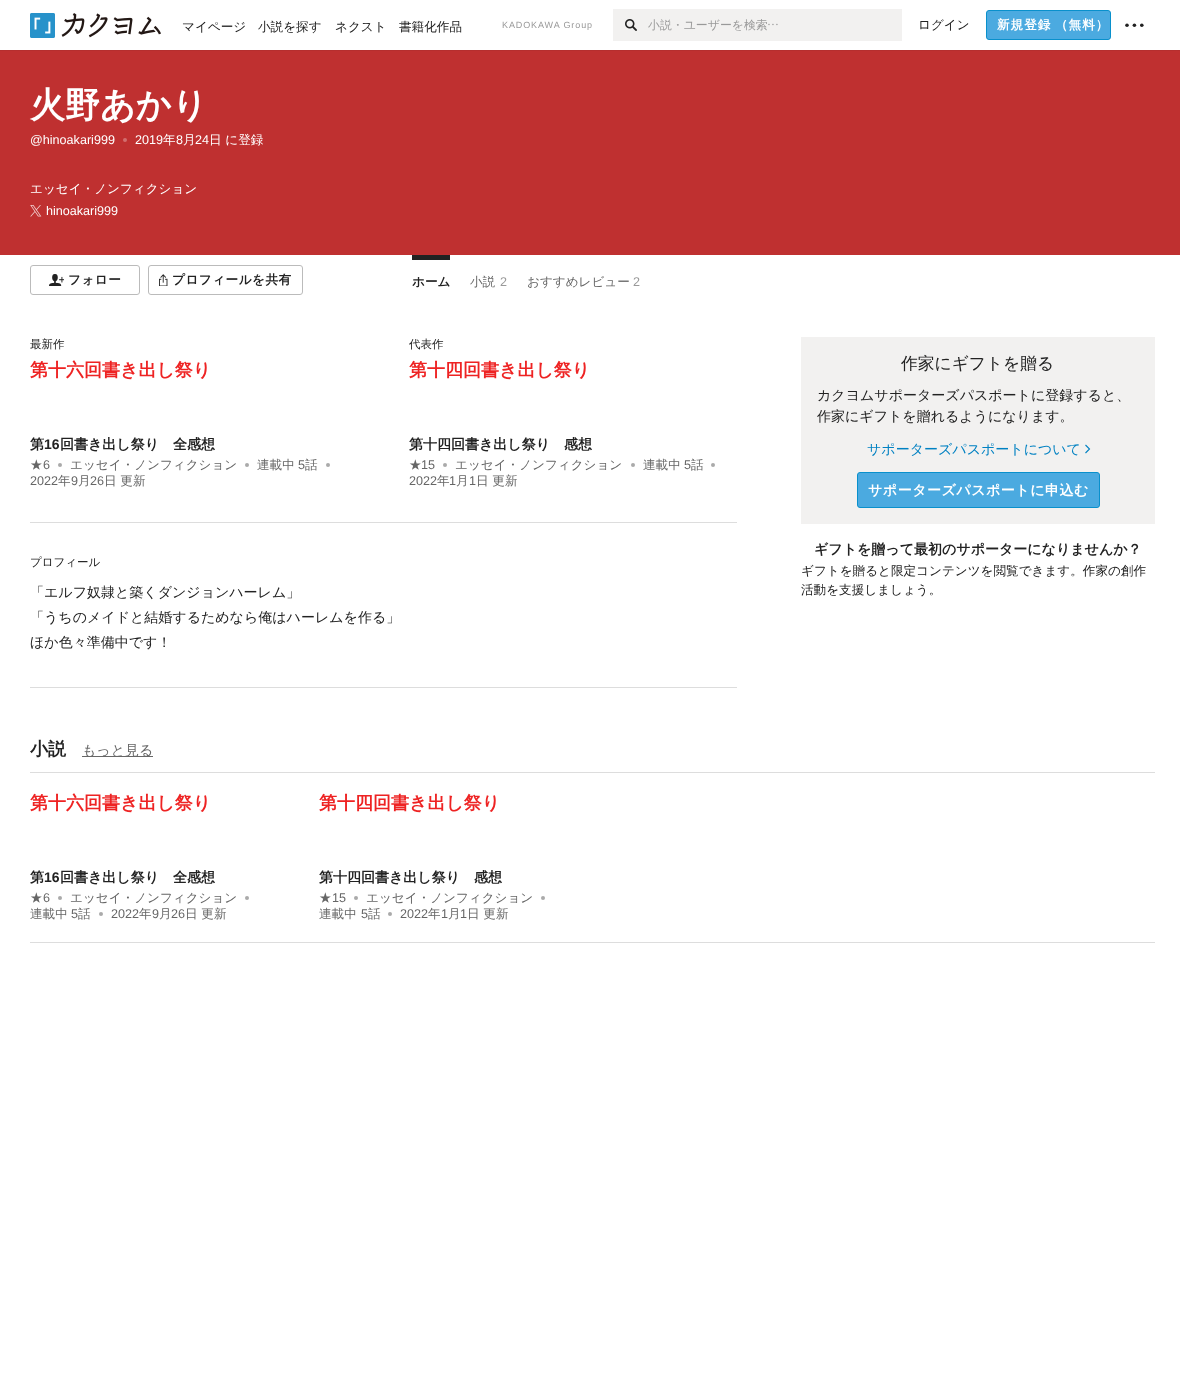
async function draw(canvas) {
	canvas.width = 1180;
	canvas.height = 1382;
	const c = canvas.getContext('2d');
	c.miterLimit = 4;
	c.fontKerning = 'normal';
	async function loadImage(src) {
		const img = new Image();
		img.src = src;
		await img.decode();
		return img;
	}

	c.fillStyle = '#fff';
	c.fillRect(0, 0, 1180, 1382);
	c.fillStyle = '#b52e2e';
	c.fillRect(0, 50, 1180, 1);
	c.drawImage(await loadImage('img1.png'), 30, 13, 131, 25);
	c.font = '500 12.6px WenQuanYi Zen Hei';
	c.fillStyle = '#222';
	for (const [text, x, y] of [
		['マイページ', 182, 31],
		['小説を探す', 258, 31],
		['ネクスト', 335, 31],
		['書籍化作品', 399, 31],
	]) {
		c.fillText(text, x, y);
	}
	c.letterSpacing = '0.9px';
	c.font = '9px Liberation Sans';
	c.fillStyle = '#999';
	c.fillText('KADOKAWA Group', 502, 28);
	c.fillStyle = '#f2f1f0';
	c.fillRect(613, 9, 289, 32);
	c.drawImage(await loadImage('img2.png'), 625, 19, 12, 12);
	c.letterSpacing = '0px';
	c.font = '500 11.9px WenQuanYi Zen Hei';
	c.fillStyle = '#999';
	c.fillText('小説・ユーザーを検索', 648, 29);
	c.drawImage(await loadImage('img3.png'), 768, 23, 10, 3);
	c.font = '500 12.6px WenQuanYi Zen Hei';
	c.fillStyle = '#222';
	c.fillText('ログイン', 918, 29);
	c.fillStyle = '#4baae0';
	c.beginPath();
	c.roundRect(986.5, 10.5, 124, 29, 2.5);
	c.fill();
	c.strokeStyle = '#0990cc';
	c.stroke();
	c.letterSpacing = '1px';
	c.font = 'bold 12.6px WenQuanYi Zen Hei';
	c.fillStyle = '#fff';
	c.fillText('新規登録', 997, 29);
	c.fillText('（無料）', 1055, 29);
	c.fillStyle = '#222';
	c.beginPath();
	c.arc(1127, 25.2, 1.8, 0, 2 * Math.PI);
	c.fill();
	c.beginPath();
	c.arc(1134.4, 25.2, 1.8, 0, 2 * Math.PI);
	c.fill();
	c.beginPath();
	c.arc(1141.8, 25.2, 1.8, 0, 2 * Math.PI);
	c.fill();
	c.fillStyle = '#bf3030';
	c.fillRect(0, 51, 1180, 204);
	c.letterSpacing = '0px';
	c.font = 'bold 35px WenQuanYi Zen Hei';
	c.fillStyle = '#fff';
	c.fillText('火野あかり', 30, 117);
	c.font = '12.6px Liberation Sans';
	c.fillText('@hinoakari999', 30, 144);
	c.fillStyle = '#d26e6e';
	c.beginPath();
	c.arc(125, 140, 2, 0, 2 * Math.PI);
	c.fill();
	c.fillStyle = '#fff';
	c.fillText('2019', 135, 144);
	c.font = '500 12.6px WenQuanYi Zen Hei';
	c.fillText('年', 163, 144);
	c.font = '12.6px Liberation Sans';
	c.fillText('8', 176, 144);
	c.font = '500 12.6px WenQuanYi Zen Hei';
	c.fillText('月', 183, 144);
	c.font = '12.6px Liberation Sans';
	c.fillText('24', 195, 144);
	c.font = '500 12.6px WenQuanYi Zen Hei';
	c.fillText('日 に登録', 209, 144);
	c.fillText('エッセイ・ノンフィクション', 30, 193);
	c.drawImage(await loadImage('img4.png'), 30, 205, 12, 12);
	c.font = '12.6px Liberation Sans';
	c.fillText('hinoakari999', 46, 215);
	c.beginPath();
	c.roundRect(30.5, 265.5, 109, 29, 2.5);
	c.strokeStyle = '#bbb';
	c.stroke();
	c.drawImage(await loadImage('img5.png'), 49, 274, 15, 12);
	c.letterSpacing = '0.5px';
	c.font = 'bold 12.6px WenQuanYi Zen Hei';
	c.fillStyle = '#222';
	c.fillText('フォロー', 68, 284);
	c.beginPath();
	c.roundRect(148.5, 265.5, 154, 29, 2.5);
	c.stroke();
	c.drawImage(await loadImage('img6.png'), 159, 274, 9, 12);
	c.fillText('プロフィールを共有', 172, 284);
	c.fillRect(412, 255, 38, 5);
	c.letterSpacing = '0px';
	c.fillText('ホーム', 412, 286);
	c.font = '500 12.6px WenQuanYi Zen Hei';
	c.fillStyle = '#666';
	c.fillText('小説', 470, 286);
	c.font = '12.6px Liberation Sans';
	c.fillStyle = '#999';
	c.fillText('2', 500, 286);
	c.font = '500 12.6px WenQuanYi Zen Hei';
	c.fillStyle = '#666';
	c.fillText('おすすめレビュー', 527, 286);
	c.font = '12.6px Liberation Sans';
	c.fillStyle = '#999';
	c.fillText('2', 633, 286);
	c.fillStyle = '#ddd';
	c.fillRect(30, 522, 707, 1);
	c.font = '500 11.5px WenQuanYi Zen Hei';
	c.fillStyle = '#222';
	c.fillText('最新作', 30, 348);
	c.font = 'bold 18px WenQuanYi Zen Hei';
	c.fillStyle = '#ee2323';
	c.fillText('第十六回書き出し祭り', 30, 376);
	c.font = 'bold 14px WenQuanYi Zen Hei';
	c.fillStyle = '#222';
	c.fillText('第', 30, 449);
	c.font = 'bold 14px Liberation Sans';
	c.fillText('16', 44, 449);
	c.font = 'bold 14px WenQuanYi Zen Hei';
	c.fillText('回書き出し祭り　全感想', 60, 449);
	c.font = '500 12.6px WenQuanYi Zen Hei';
	c.fillStyle = '#666';
	c.fillText('★', 30, 469);
	c.font = '12.6px Liberation Sans';
	c.fillText('6', 43, 469);
	c.fillStyle = '#aaa';
	c.beginPath();
	c.arc(60, 465, 2, 0, 2 * Math.PI);
	c.fill();
	c.font = '500 12.6px WenQuanYi Zen Hei';
	c.fillStyle = '#666';
	c.fillText('エッセイ・ノンフィクション', 70, 469);
	c.fillStyle = '#aaa';
	c.beginPath();
	c.arc(247, 465, 2, 0, 2 * Math.PI);
	c.fill();
	c.fillStyle = '#666';
	c.fillText('連載中', 257, 469);
	c.font = '12.6px Liberation Sans';
	c.fillText('5', 298, 469);
	c.font = '500 12.6px WenQuanYi Zen Hei';
	c.fillText('話', 305, 469);
	c.fillStyle = '#aaa';
	c.beginPath();
	c.arc(328, 465, 2, 0, 2 * Math.PI);
	c.fill();
	c.font = '12.6px Liberation Sans';
	c.fillStyle = '#666';
	c.fillText('2022', 30, 485);
	c.font = '500 12.6px WenQuanYi Zen Hei';
	c.fillText('年', 58, 485);
	c.font = '12.6px Liberation Sans';
	c.fillText('9', 71, 485);
	c.font = '500 12.6px WenQuanYi Zen Hei';
	c.fillText('月', 78, 485);
	c.font = '12.6px Liberation Sans';
	c.fillText('26', 90, 485);
	c.font = '500 12.6px WenQuanYi Zen Hei';
	c.fillText('日 更新', 104, 485);
	c.font = '500 11.5px WenQuanYi Zen Hei';
	c.fillStyle = '#222';
	c.fillText('代表作', 409, 348);
	c.font = 'bold 18px WenQuanYi Zen Hei';
	c.fillStyle = '#ee2323';
	c.fillText('第十四回書き出し祭り', 409, 376);
	c.font = 'bold 14px WenQuanYi Zen Hei';
	c.fillStyle = '#222';
	c.fillText('第十四回書き出し祭り　感想', 409, 449);
	c.font = '500 12.6px WenQuanYi Zen Hei';
	c.fillStyle = '#666';
	c.fillText('★', 409, 469);
	c.font = '12.6px Liberation Sans';
	c.fillText('15', 421, 469);
	c.fillStyle = '#aaa';
	c.beginPath();
	c.arc(445, 465, 2, 0, 2 * Math.PI);
	c.fill();
	c.font = '500 12.6px WenQuanYi Zen Hei';
	c.fillStyle = '#666';
	c.fillText('エッセイ・ノンフィクション', 455, 469);
	c.fillStyle = '#aaa';
	c.beginPath();
	c.arc(633, 465, 2, 0, 2 * Math.PI);
	c.fill();
	c.fillStyle = '#666';
	c.fillText('連載中', 643, 469);
	c.font = '12.6px Liberation Sans';
	c.fillText('5', 684, 469);
	c.font = '500 12.6px WenQuanYi Zen Hei';
	c.fillText('話', 691, 469);
	c.fillStyle = '#aaa';
	c.beginPath();
	c.arc(713, 465, 2, 0, 2 * Math.PI);
	c.fill();
	c.font = '12.6px Liberation Sans';
	c.fillStyle = '#666';
	c.fillText('2022', 409, 485);
	c.font = '500 12.6px WenQuanYi Zen Hei';
	c.fillText('年', 437, 485);
	c.font = '12.6px Liberation Sans';
	c.fillText('1', 449, 485);
	c.font = '500 12.6px WenQuanYi Zen Hei';
	c.fillText('月', 456, 485);
	c.font = '12.6px Liberation Sans';
	c.fillText('1', 469, 485);
	c.font = '500 12.6px WenQuanYi Zen Hei';
	c.fillText('日 更新', 476, 485);
	c.fillStyle = '#ddd';
	c.fillRect(30, 687, 707, 1);
	c.font = '500 11.5px WenQuanYi Zen Hei';
	c.fillStyle = '#222';
	c.fillText('プロフィール', 30, 566);
	c.font = '500 14px WenQuanYi Zen Hei';
	for (const [text, x, y] of [
		['「エルフ奴隷と築くダンジョンハーレム」', 30, 597],
		['「うちのメイドと結婚するためなら俺はハーレムを作る」', 30, 622],
		['ほか色々準備中です！', 30, 647],
	]) {
		c.fillText(text, x, y);
	}
	c.fillStyle = '#f2f1f0';
	c.fillRect(801, 337, 354, 187);
	c.font = '500 16.75px WenQuanYi Zen Hei';
	c.fillStyle = '#222';
	c.fillText('作家にギフトを贈る', 901, 369);
	c.font = '500 14px WenQuanYi Zen Hei';
	c.fillText('カクヨムサポーターズパスポートに登録すると、', 817, 400);
	c.fillText('作家にギフトを贈れるようになります。', 817, 421);
	c.fillStyle = '#0081c2';
	c.fillText('サポーターズパスポートについて', 867, 454);
	c.beginPath();
	c.moveTo(1085.5, 445);
	c.lineTo(1089.5, 449);
	c.lineTo(1085.5, 453);
	c.strokeStyle = '#0081c2';
	c.lineWidth = 1.1;
	c.stroke();
	c.fillStyle = '#4baae0';
	c.beginPath();
	c.roundRect(857.5, 472.5, 242, 35, 2.5);
	c.fill();
	c.strokeStyle = '#0990cc';
	c.lineWidth = 1;
	c.stroke();
	c.letterSpacing = '0.5px';
	c.font = 'bold 14px WenQuanYi Zen Hei';
	c.fillStyle = '#fff';
	c.fillText('サポーターズパスポートに申込む', 868, 495);
	c.letterSpacing = '0px';
	c.fillStyle = '#222';
	c.fillText('ギフトを贈って最初のサポーターになりませんか？', 814, 554);
	c.font = '500 12.6px WenQuanYi Zen Hei';
	c.fillText('ギフトを贈ると限定コンテンツを閲覧できます。作家の創作', 801, 575);
	c.fillText('活動を支援しましょう。', 801, 594);
	c.fillStyle = '#ddd';
	c.fillRect(30, 772, 1125, 1);
	c.font = 'bold 18px WenQuanYi Zen Hei';
	c.fillStyle = '#222';
	c.fillText('小説', 30, 755);
	c.fillStyle = '#666';
	c.fillRect(82, 756, 71, 1);
	c.font = '500 14px WenQuanYi Zen Hei';
	c.fillText('もっと見る', 82, 755);
	c.font = 'bold 18px WenQuanYi Zen Hei';
	c.fillStyle = '#ee2323';
	c.fillText('第十六回書き出し祭り', 30, 809);
	c.font = 'bold 14px WenQuanYi Zen Hei';
	c.fillStyle = '#222';
	c.fillText('第', 30, 882);
	c.font = 'bold 14px Liberation Sans';
	c.fillText('16', 44, 882);
	c.font = 'bold 14px WenQuanYi Zen Hei';
	c.fillText('回書き出し祭り　全感想', 60, 882);
	c.font = '500 12.6px WenQuanYi Zen Hei';
	c.fillStyle = '#666';
	c.fillText('★', 30, 902);
	c.font = '12.6px Liberation Sans';
	c.fillText('6', 43, 902);
	c.fillStyle = '#aaa';
	c.beginPath();
	c.arc(60, 898, 2, 0, 2 * Math.PI);
	c.fill();
	c.font = '500 12.6px WenQuanYi Zen Hei';
	c.fillStyle = '#666';
	c.fillText('エッセイ・ノンフィクション', 70, 902);
	c.fillStyle = '#aaa';
	c.beginPath();
	c.arc(247, 898, 2, 0, 2 * Math.PI);
	c.fill();
	c.fillStyle = '#666';
	c.fillText('連載中', 30, 918);
	c.font = '12.6px Liberation Sans';
	c.fillText('5', 71, 918);
	c.font = '500 12.6px WenQuanYi Zen Hei';
	c.fillText('話', 78, 918);
	c.fillStyle = '#aaa';
	c.beginPath();
	c.arc(101, 914, 2, 0, 2 * Math.PI);
	c.fill();
	c.font = '12.6px Liberation Sans';
	c.fillStyle = '#666';
	c.fillText('2022', 111, 918);
	c.font = '500 12.6px WenQuanYi Zen Hei';
	c.fillText('年', 139, 918);
	c.font = '12.6px Liberation Sans';
	c.fillText('9', 152, 918);
	c.font = '500 12.6px WenQuanYi Zen Hei';
	c.fillText('月', 159, 918);
	c.font = '12.6px Liberation Sans';
	c.fillText('26', 171, 918);
	c.font = '500 12.6px WenQuanYi Zen Hei';
	c.fillText('日 更新', 185, 918);
	c.fillStyle = '#ddd';
	c.fillRect(30, 942, 1125, 1);
	c.font = 'bold 18px WenQuanYi Zen Hei';
	c.fillStyle = '#ee2323';
	c.fillText('第十四回書き出し祭り', 319, 809);
	c.font = 'bold 14px WenQuanYi Zen Hei';
	c.fillStyle = '#222';
	c.fillText('第十四回書き出し祭り　感想', 319, 882);
	c.font = '500 12.6px WenQuanYi Zen Hei';
	c.fillStyle = '#666';
	c.fillText('★', 319, 902);
	c.font = '12.6px Liberation Sans';
	c.fillText('15', 332, 902);
	c.fillStyle = '#aaa';
	c.beginPath();
	c.arc(356, 898, 2, 0, 2 * Math.PI);
	c.fill();
	c.font = '500 12.6px WenQuanYi Zen Hei';
	c.fillStyle = '#666';
	c.fillText('エッセイ・ノンフィクション', 366, 902);
	c.fillStyle = '#aaa';
	c.beginPath();
	c.arc(543, 898, 2, 0, 2 * Math.PI);
	c.fill();
	c.fillStyle = '#666';
	c.fillText('連載中', 319, 918);
	c.font = '12.6px Liberation Sans';
	c.fillText('5', 361, 918);
	c.font = '500 12.6px WenQuanYi Zen Hei';
	c.fillText('話', 368, 918);
	c.fillStyle = '#aaa';
	c.beginPath();
	c.arc(390, 914, 2, 0, 2 * Math.PI);
	c.fill();
	c.font = '12.6px Liberation Sans';
	c.fillStyle = '#666';
	c.fillText('2022', 400, 918);
	c.font = '500 12.6px WenQuanYi Zen Hei';
	c.fillText('年', 428, 918);
	c.font = '12.6px Liberation Sans';
	c.fillText('1', 441, 918);
	c.font = '500 12.6px WenQuanYi Zen Hei';
	c.fillText('月', 448, 918);
	c.font = '12.6px Liberation Sans';
	c.fillText('1', 460, 918);
	c.font = '500 12.6px WenQuanYi Zen Hei';
	c.fillText('日 更新', 467, 918);
}

draw(document.querySelector('canvas'));
